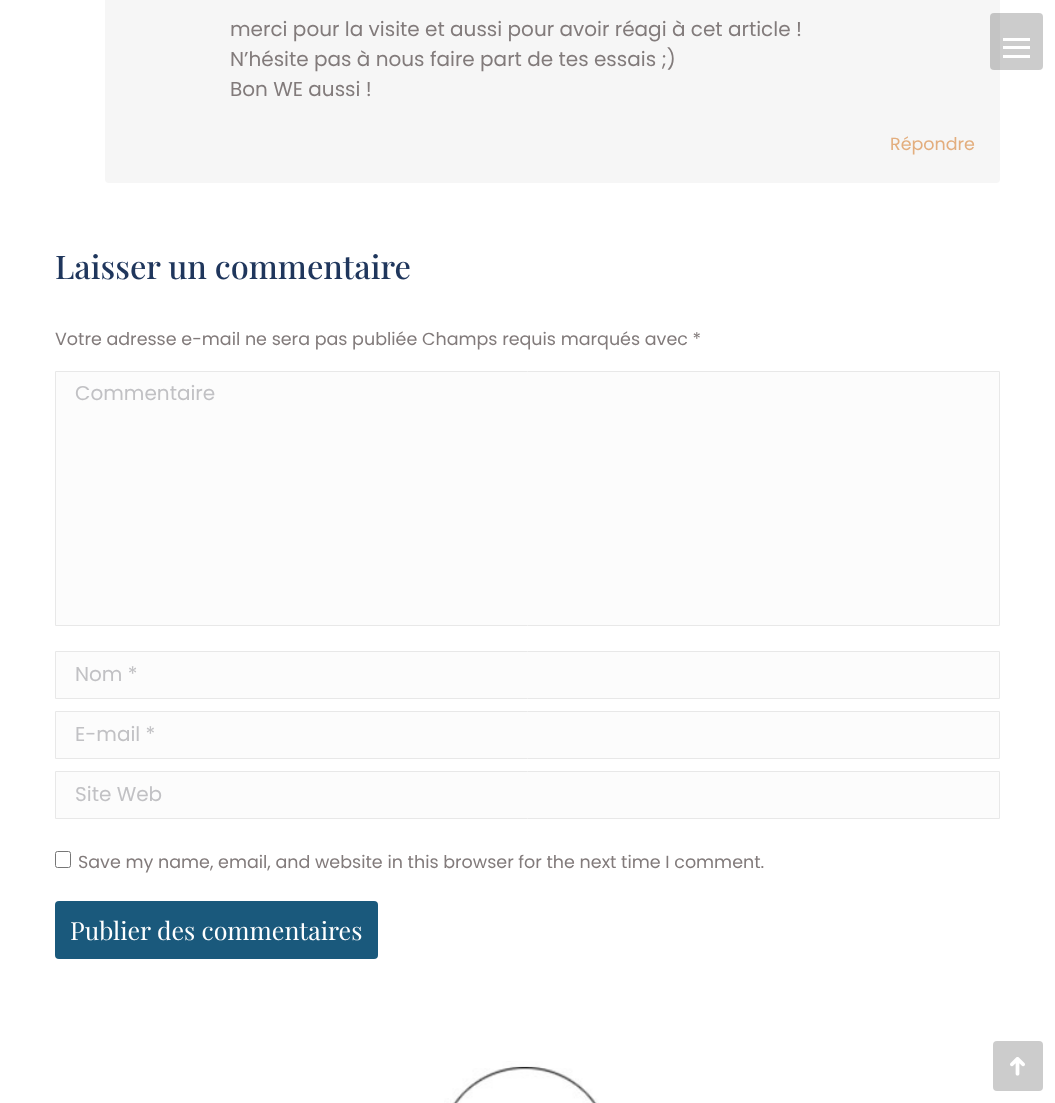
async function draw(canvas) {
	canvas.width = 1055;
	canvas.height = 1103;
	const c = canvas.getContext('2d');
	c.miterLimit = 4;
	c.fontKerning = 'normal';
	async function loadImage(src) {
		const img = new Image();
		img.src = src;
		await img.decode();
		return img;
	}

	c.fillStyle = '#fff';
	c.fillRect(0, 0, 1055, 1103);
	c.fillStyle = '#f6f6f6';
	c.beginPath();
	c.roundRect(105, -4, 895, 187, 4);
	c.fill();
	c.font = '20px Poppins';
	c.fillStyle = '#827b7b';
	for (const [text, x, y] of [
		['merci pour la visite et aussi pour avoir réagi à cet article !', 230, 36],
		['N’hésite pas à nous faire part de tes essais ;)', 230, 66],
		['Bon WE aussi !', 230, 96],
	]) {
		c.fillText(text, x, y);
	}
	c.font = '17.5px Poppins';
	c.fillStyle = '#e3ae7e';
	c.fillText('Répondre', 890, 150);
	c.font = '500 32.5px Playfair Display';
	c.fillStyle = '#1f365c';
	c.fillText('Laisser un commentaire', 55, 279);
	c.font = '17.5px Poppins';
	c.fillStyle = '#827b7b';
	c.fillText('Votre adresse e-mail ne sera pas publiée Champs requis marqués avec *', 55, 345);
	c.fillStyle = '#fcfcfc';
	c.beginPath();
	c.rect(55.5, 371.5, 944, 254);
	c.fill();
	c.strokeStyle = '#e8e8e8';
	c.stroke();
	c.font = '20px Poppins';
	c.fillStyle = '#c1c1c4';
	c.fillText('Commentaire', 75, 400);
	c.fillStyle = '#fcfcfc';
	c.beginPath();
	c.rect(55.5, 651.5, 944, 47);
	c.fill();
	c.stroke();
	c.fillStyle = '#c1c1c4';
	c.fillText('Nom *', 75, 681);
	c.fillStyle = '#fcfcfc';
	c.beginPath();
	c.rect(55.5, 711.5, 944, 47);
	c.fill();
	c.stroke();
	c.fillStyle = '#c1c1c4';
	c.fillText('E-mail *', 75, 741);
	c.fillStyle = '#fcfcfc';
	c.beginPath();
	c.rect(55.5, 771.5, 944, 47);
	c.fill();
	c.stroke();
	c.fillStyle = '#c1c1c4';
	c.fillText('Site Web', 75, 801);
	c.beginPath();
	c.roundRect(55.5, 851.5, 15, 16, 2);
	c.strokeStyle = '#767676';
	c.stroke();
	c.font = '17.5px Poppins';
	c.fillStyle = '#827b7b';
	c.fillText('Save my name, email, and website in this browser for the next time I comment.', 78, 868);
	c.fillStyle = '#1a597c';
	c.beginPath();
	c.roundRect(55, 901, 323, 58, 4);
	c.fill();
	c.font = '25px Playfair Display';
	c.fillStyle = '#fff';
	c.fillText('Publier des commentaires', 70, 940);
	c.fillStyle = '#00000033';
	c.beginPath();
	c.roundRect(990, 13, 53, 57, 4);
	c.fill();
	for (const [x, y, w, h, color] of [
		[1003, 38, 27, 3, '#fff'],
		[1003, 46, 27, 3, '#fff'],
		[1003, 55, 27, 3, '#fff'],
	]) {
		c.fillStyle = color;
		c.fillRect(x, y, w, h);
	}
	c.drawImage(await loadImage('img1.png'), 444, 1061, 155, 42);
	c.fillStyle = '#ccc';
	c.beginPath();
	c.roundRect(993, 1041, 50, 50, 4);
	c.fill();
	c.drawImage(await loadImage('img2.png'), 1010, 1057, 15, 19);
}

draw(document.querySelector('canvas'));
